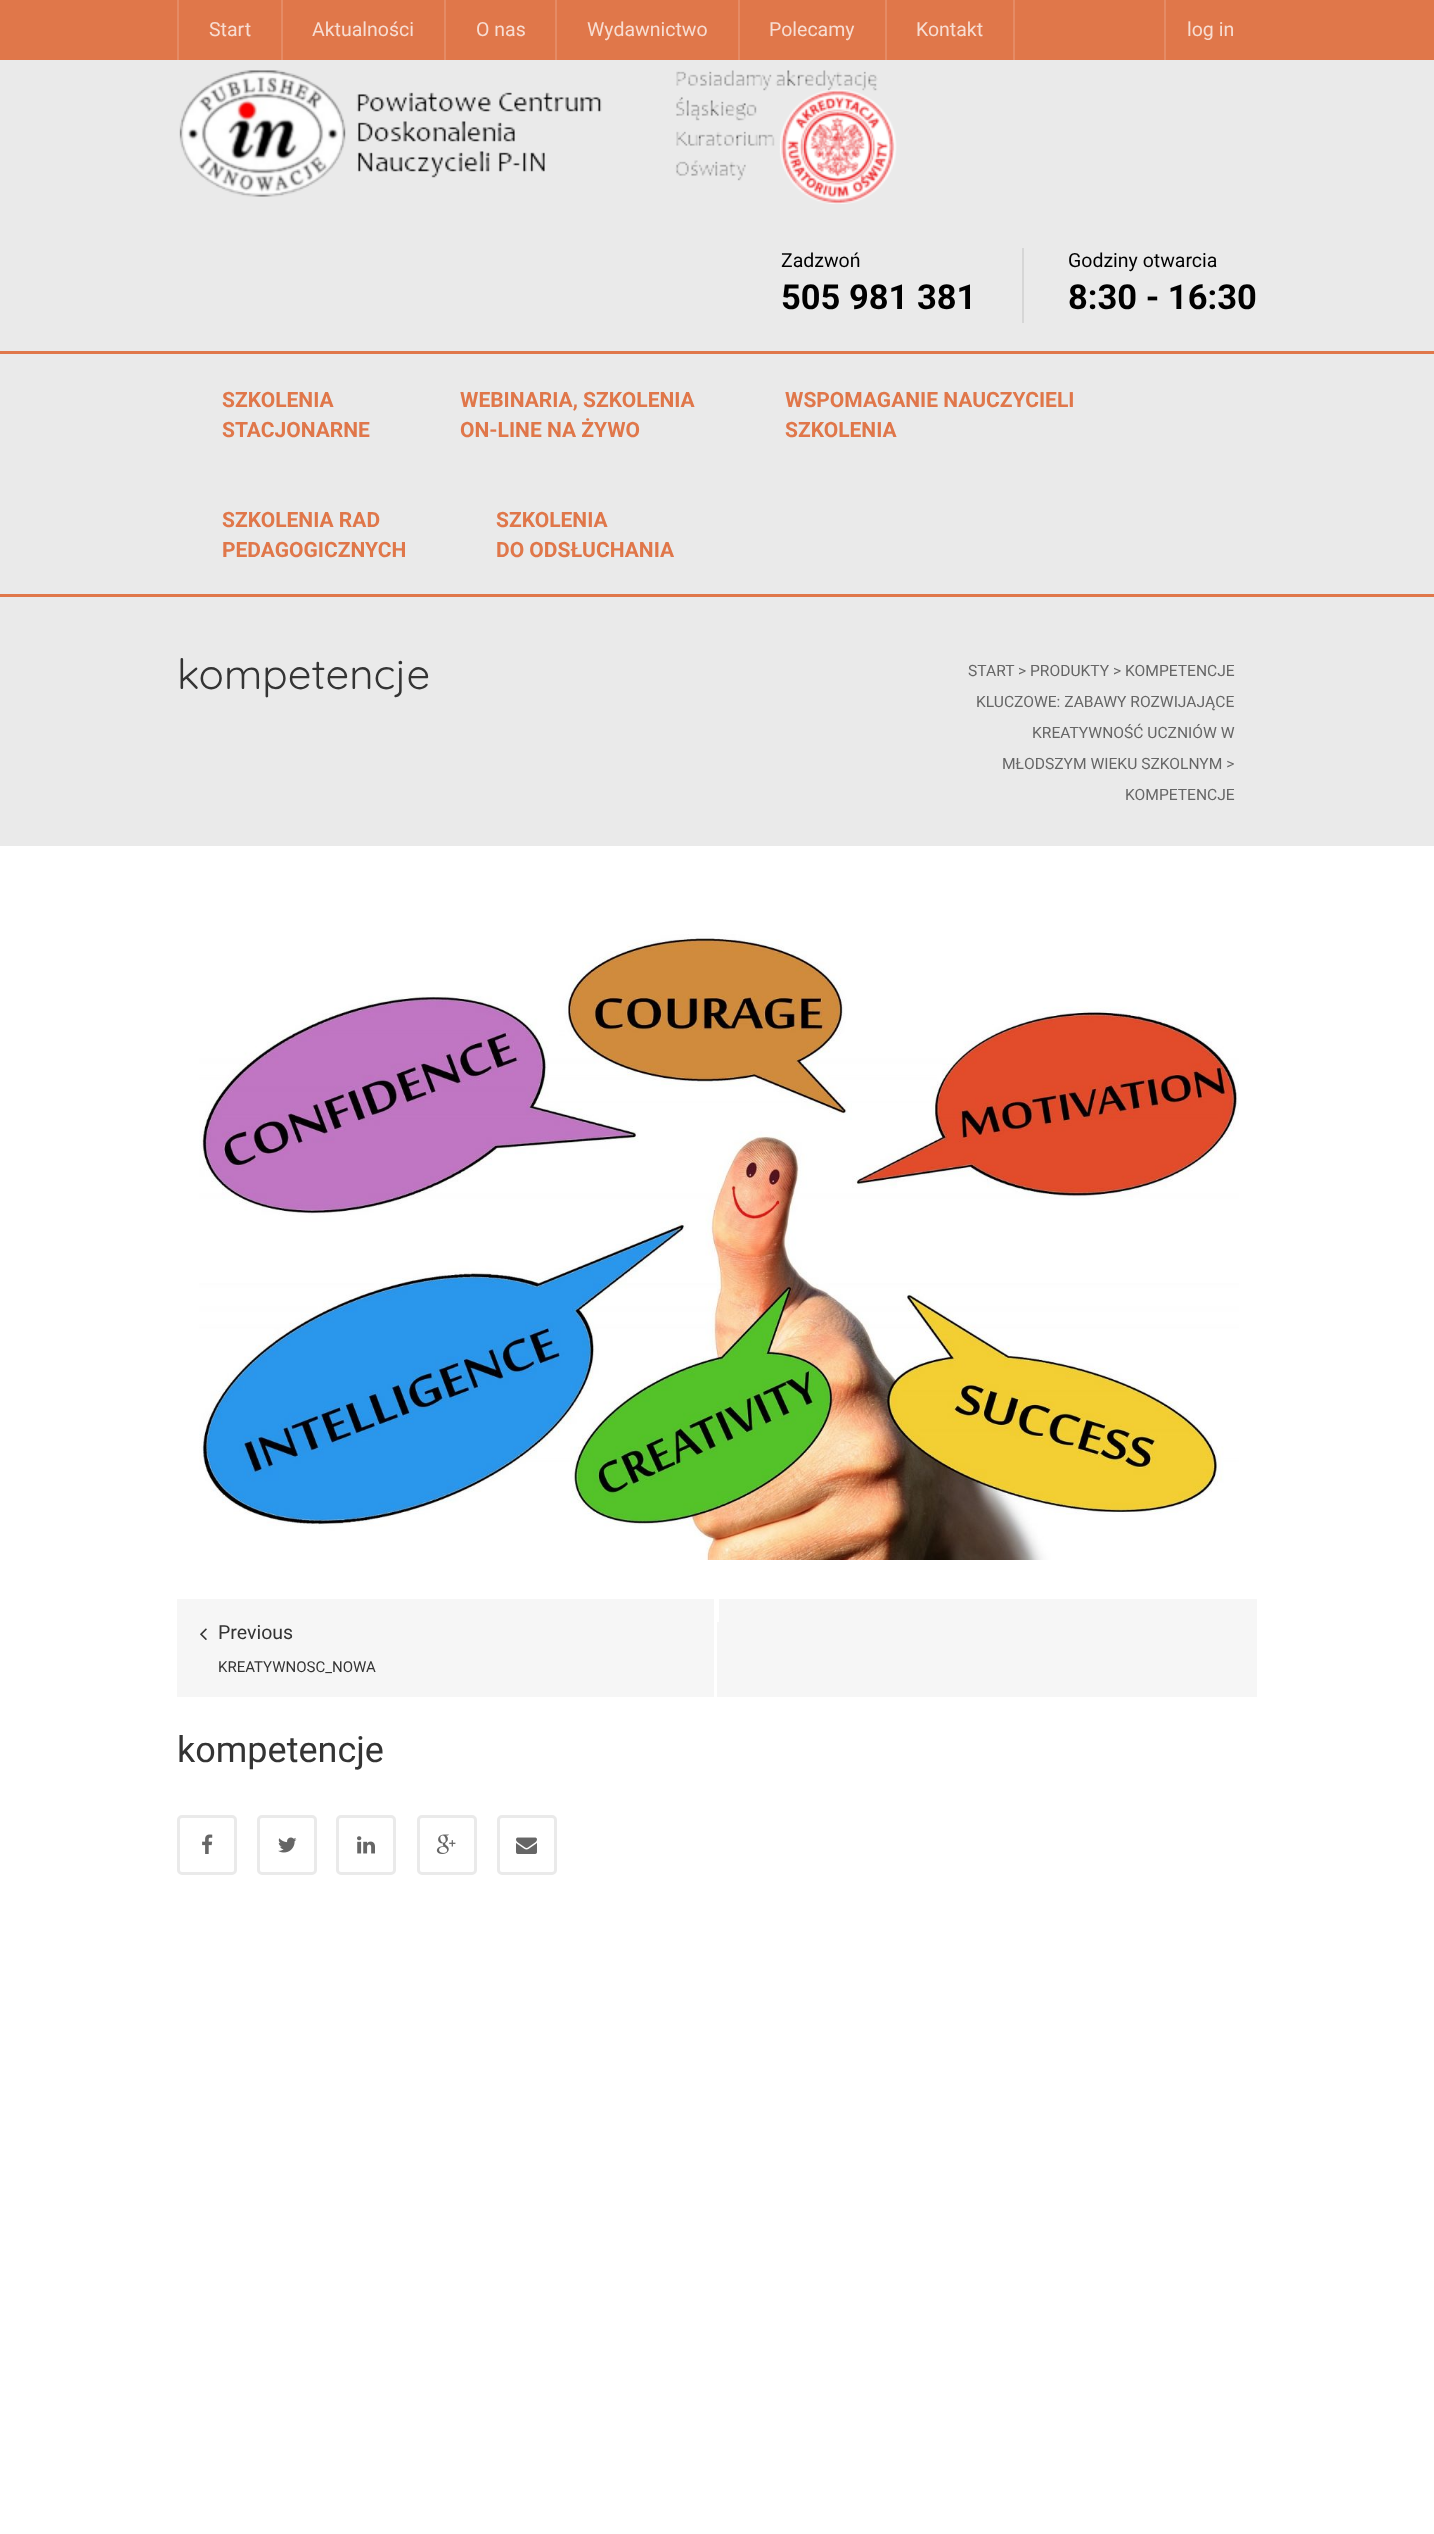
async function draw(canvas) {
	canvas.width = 1434;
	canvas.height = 2534;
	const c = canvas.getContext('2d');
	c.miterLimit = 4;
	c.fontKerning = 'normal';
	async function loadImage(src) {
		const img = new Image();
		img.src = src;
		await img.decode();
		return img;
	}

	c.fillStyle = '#fff';
	c.fillRect(0, 0, 1434, 2534);
	c.fillStyle = '#e0774a';
	c.fillRect(0, 0, 1434, 60);
	c.fillStyle = '#e58b65';
	c.fillRect(177, 0, 2, 60);
	c.font = '19.5px Roboto';
	c.fillStyle = '#f7ddd2';
	c.fillText('Start', 209, 36);
	c.fillStyle = '#e58b65';
	c.fillRect(281, 0, 2, 60);
	c.fillStyle = '#f7ddd2';
	c.fillText('Aktualności', 312, 36);
	c.fillStyle = '#e58b65';
	c.fillRect(444, 0, 2, 60);
	c.fillStyle = '#f7ddd2';
	c.fillText('O nas', 476, 36);
	c.fillStyle = '#e58b65';
	c.fillRect(555, 0, 2, 60);
	c.fillStyle = '#f7ddd2';
	c.fillText('Wydawnictwo', 587, 36);
	c.fillStyle = '#e58b65';
	c.fillRect(738, 0, 2, 60);
	c.fillStyle = '#f7ddd2';
	c.fillText('Polecamy', 769, 36);
	c.fillStyle = '#e58b65';
	c.fillRect(1013, 0, 2, 60);
	c.fillRect(885, 0, 2, 60);
	c.fillStyle = '#f7ddd2';
	c.fillText('Kontakt', 916, 36);
	c.fillStyle = '#e58b65';
	c.fillRect(1164, 0, 2, 60);
	c.fillStyle = '#f7ddd2';
	c.fillText('log in', 1187, 36);
	c.fillStyle = '#eaeaea';
	c.fillRect(0, 60, 1434, 534);
	c.drawImage(await loadImage('img1.png'), 179, 70, 718, 134);
	c.fillStyle = '#000';
	c.fillText('Zadzwoń', 781, 267);
	c.font = 'bold 34.5px Roboto';
	c.fillText('505 981 381', 781, 309);
	c.fillStyle = '#d6d6d6';
	c.fillRect(1022, 248, 2, 75);
	c.font = '19.5px Roboto';
	c.fillStyle = '#000';
	c.fillText('Godziny otwarcia', 1068, 267);
	c.font = 'bold 34.5px Roboto';
	c.fillText('8:30 - 16:30', 1068, 309);
	c.fillStyle = '#e0774a';
	c.fillRect(0, 351, 1434, 3);
	c.fillRect(0, 594, 1434, 3);
	c.font = 'bold 21px Roboto';
	for (const [text, x, y] of [
		['SZKOLENIA', 222, 407],
		['STACJONARNE', 222, 437],
		['WEBINARIA, SZKOLENIA', 460, 407],
		['ON-LINE NA ŻYWO', 460, 437],
		['WSPOMAGANIE NAUCZYCIELI', 785, 407],
		['SZKOLENIA', 785, 437],
		['SZKOLENIA RAD', 222, 527],
		['PEDAGOGICZNYCH', 222, 557],
		['SZKOLENIA', 496, 527],
		['DO ODSŁUCHANIA', 496, 557],
	]) {
		c.fillText(text, x, y);
	}
	c.fillStyle = '#eaeaea';
	c.fillRect(0, 597, 1434, 249);
	c.font = '300 42px Quicksand';
	c.fillStyle = '#343434';
	c.fillText('kompetencje', 177, 689);
	c.font = '15.6px Roboto';
	c.fillStyle = '#666';
	for (const [text, x, y] of [
		['START', 968, 676],
		['> PRODUKTY > KOMPETENCJE', 1018, 676],
		['KLUCZOWE: ZABAWY ROZWIJAJĄCE', 976, 707],
		['KREATYWNOŚĆ UCZNIÓW W', 1032, 738],
		['MŁODSZYM WIEKU SZKOLNYM >', 1002, 769],
		['KOMPETENCJE', 1125, 800],
	]) {
		c.fillText(text, x, y);
	}
	c.drawImage(await loadImage('img2.png'), 199, 934, 1040, 626);
	for (const [x, y, w, h, color] of [
		[177, 1599, 1080, 98, '#f6f6f6'],
		[717, 1599, 2, 23, '#fff'],
		[714, 1599, 3, 98, '#fff'],
	]) {
		c.fillStyle = color;
		c.fillRect(x, y, w, h);
	}
	c.drawImage(await loadImage('img3.png'), 200, 1628, 7, 12);
	c.font = '19.5px Roboto';
	c.fillStyle = '#343434';
	c.fillText('Previous', 218, 1639);
	c.font = '15px Roboto';
	c.fillText('KREATYWNOSC_NOWA', 218, 1672);
	c.font = '36px Roboto';
	c.fillText('kompetencje', 177, 1762);
	c.beginPath();
	c.roundRect(178.5, 1816.5, 57, 57, 3.5);
	c.strokeStyle = '#eaeaea';
	c.lineWidth = 3;
	c.stroke();
	c.drawImage(await loadImage('img4.png'), 202, 1834, 11, 20);
	c.beginPath();
	c.roundRect(258.5, 1816.5, 57, 57, 3.5);
	c.stroke();
	c.drawImage(await loadImage('img5.png'), 278, 1837, 19, 16);
	c.beginPath();
	c.roundRect(337.5, 1816.5, 57, 57, 3.5);
	c.stroke();
	c.drawImage(await loadImage('img6.png'), 357, 1836, 18, 18);
	c.beginPath();
	c.roundRect(418.5, 1816.5, 57, 57, 3.5);
	c.stroke();
	c.drawImage(await loadImage('img7.png'), 436, 1834, 20, 20);
	c.beginPath();
	c.roundRect(498.5, 1816.5, 57, 57, 3.5);
	c.stroke();
	c.drawImage(await loadImage('img8.png'), 516, 1837, 21, 17);
}

draw(document.querySelector('canvas'));
